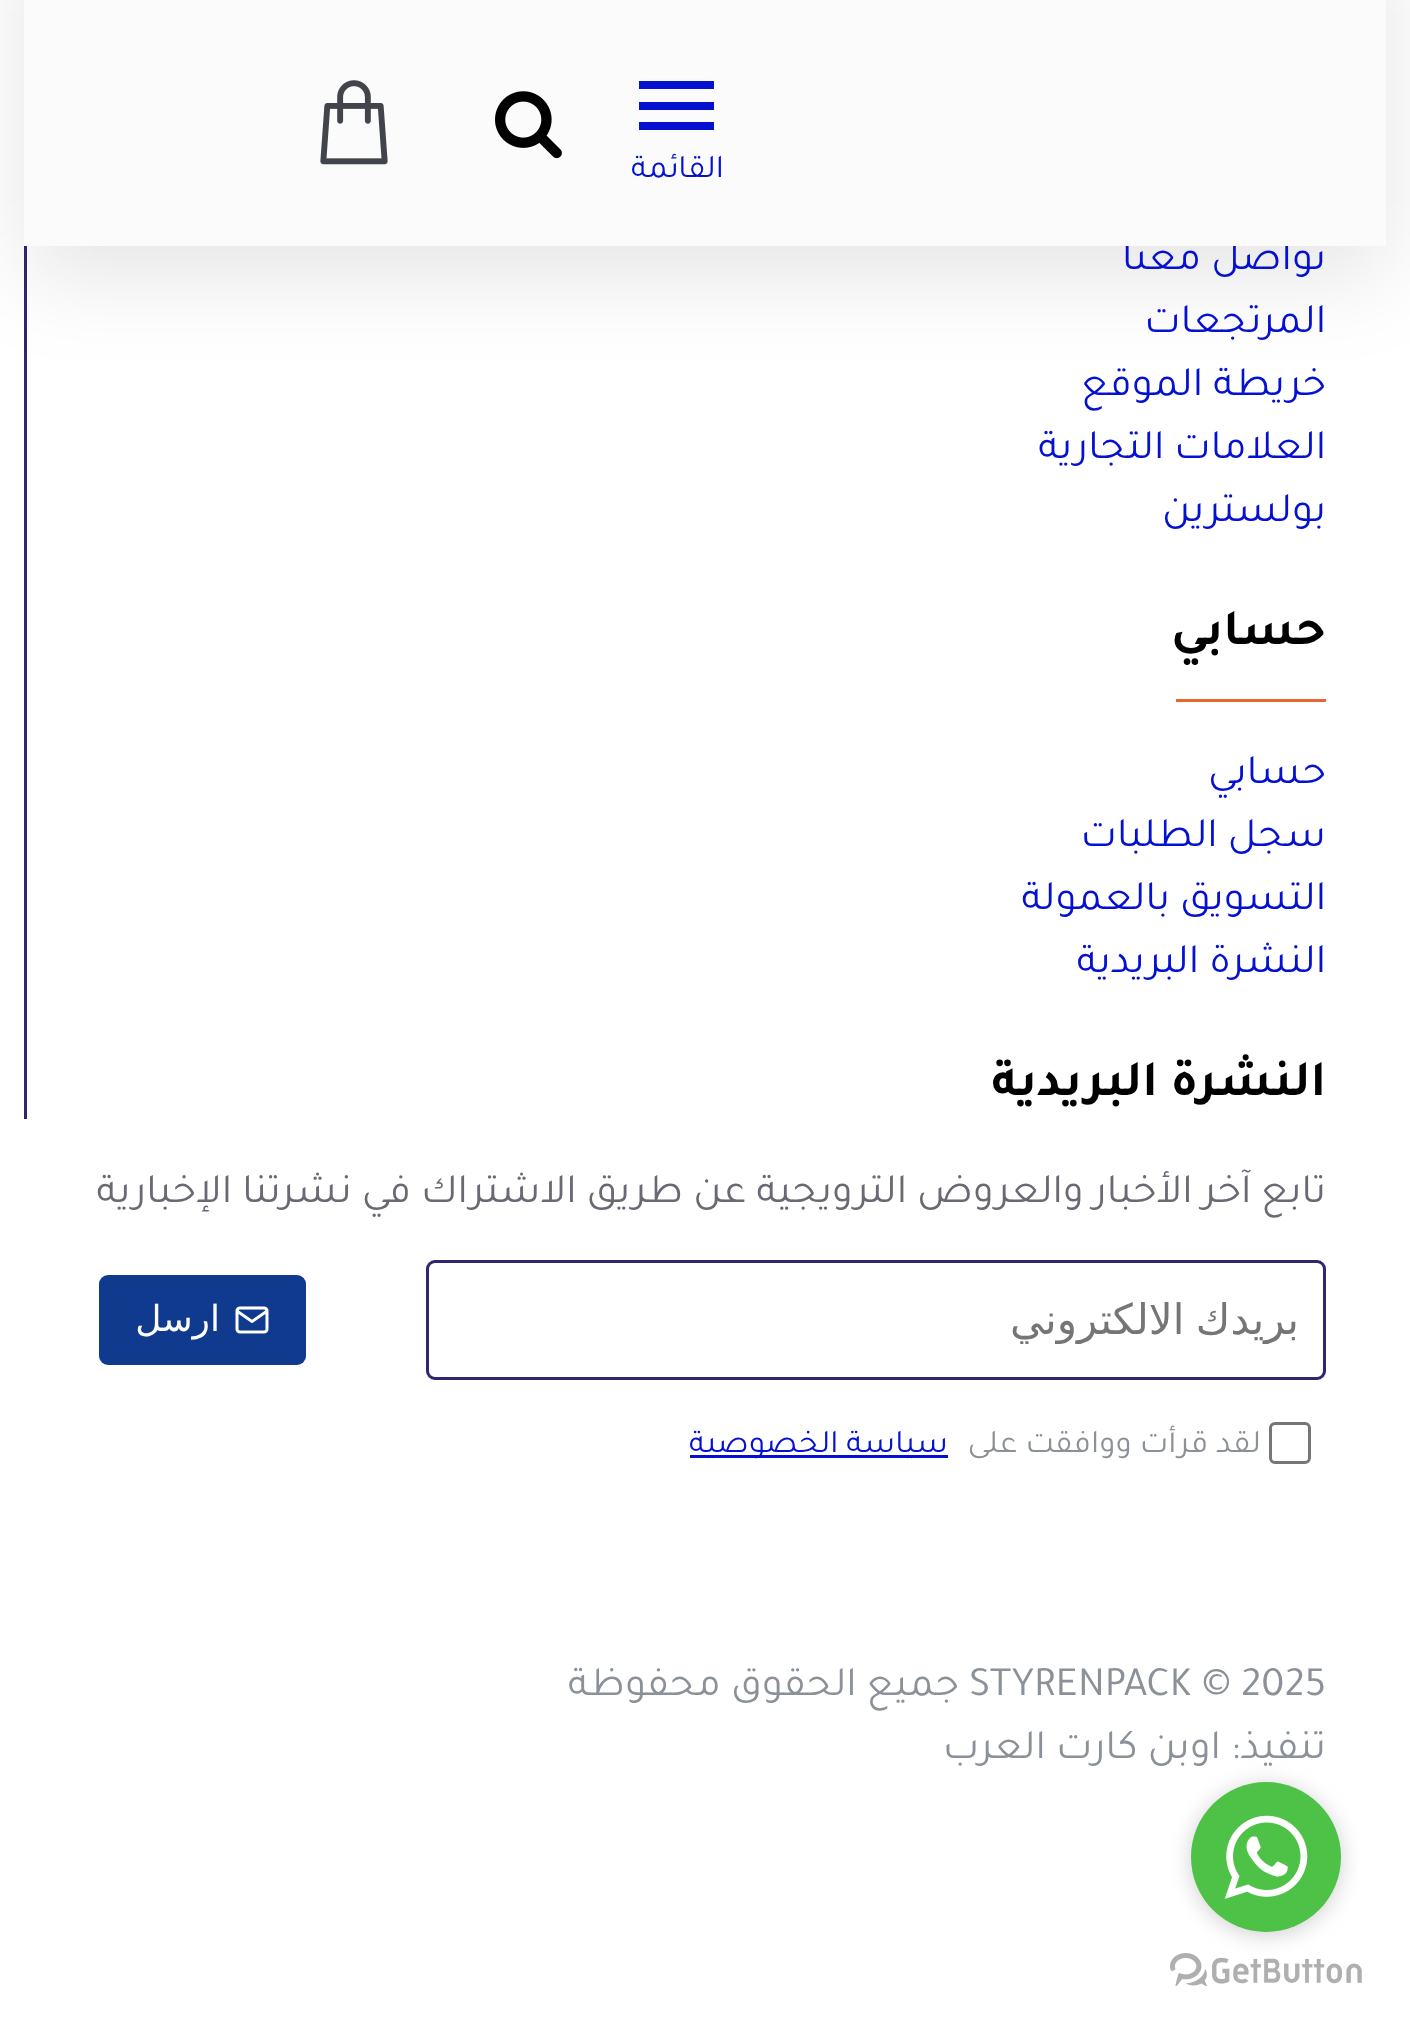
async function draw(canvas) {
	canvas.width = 1410;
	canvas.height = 2033;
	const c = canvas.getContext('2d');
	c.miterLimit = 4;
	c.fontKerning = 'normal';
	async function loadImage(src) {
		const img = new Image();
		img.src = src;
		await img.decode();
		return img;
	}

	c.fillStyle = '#fff';
	c.fillRect(0, 0, 1410, 2033);
	c.fillStyle = '#32246f';
	c.fillRect(24, 246, 3, 873);
	c.fillStyle = '#0000001a';
	c.filter = 'blur(45px)';
	c.beginPath();
	c.rect(24, -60, 1362, 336);
	c.fill();
	c.filter = 'none';
	c.direction = 'rtl';
	c.font = '42px Tajawal';
	c.fillStyle = '#0511d1';
	c.fillText('تواصل معنا', 1326, 269);
	c.fillStyle = '#fbfbfb';
	c.fillRect(24, 0, 1362, 246);
	c.drawImage(await loadImage('img1.png'), 495, 91, 67, 68);
	c.drawImage(await loadImage('img2.png'), 320, 80, 68, 85);
	c.fillStyle = '#0511d1';
	c.beginPath();
	c.moveTo(639, 81);
	c.lineTo(714, 81);
	c.lineTo(714, 89);
	c.lineTo(639, 89);
	c.closePath();
	c.moveTo(639, 110);
	c.lineTo(639, 102);
	c.lineTo(714, 102);
	c.lineTo(714, 110);
	c.closePath();
	c.moveTo(639, 130);
	c.lineTo(639, 122);
	c.lineTo(714, 122);
	c.lineTo(714, 130);
	c.closePath();
	c.fill();
	c.font = '33px Tajawal';
	c.fillText('القائمة', 724, 177);
	c.font = '42px Tajawal';
	for (const [text, x, y] of [
		['المرتجعات', 1326, 332],
		['خريطة الموقع', 1326, 395],
		['العلامات التجارية', 1326, 458],
		['بولسترين', 1326, 521],
	]) {
		c.fillText(text, x, y);
	}
	c.font = 'bold 51px Tajawal';
	c.fillStyle = '#000';
	c.fillText('حسابي', 1326, 644);
	c.fillStyle = '#e96631';
	c.fillRect(1176, 699, 150, 3);
	c.font = '42px Tajawal';
	c.fillStyle = '#0511d1';
	for (const [text, x, y] of [
		['حسابي', 1326, 783],
		['سجل الطلبات', 1326, 846],
		['التسويق بالعمولة', 1326, 909],
		['النشرة البريدية', 1326, 972],
	]) {
		c.fillText(text, x, y);
	}
	c.font = 'bold 51px Tajawal';
	c.fillStyle = '#000';
	c.fillText('النشرة البريدية', 1326, 1095);
	c.font = '42px Tajawal';
	c.fillStyle = '#696973';
	c.fillText('تابع آخر الأخبار والعروض الترويجية عن طريق الاشتراك في نشرتنا الإخبارية', 1326, 1202);
	c.beginPath();
	c.roundRect(427.5, 1261.5, 897, 117, 7.5);
	c.strokeStyle = '#32246f';
	c.lineWidth = 3;
	c.stroke();
	c.save();
	c.beginPath();
	c.rect(453, 1296, 846, 48);
	c.clip();
	c.wordSpacing = '-2px';
	c.font = '42px DejaVu Sans';
	c.fillStyle = '#757575';
	c.fillText('بريدك الالكتروني', 1299, 1334);
	c.restore();
	c.fillStyle = '#0f3a8d';
	c.beginPath();
	c.roundRect(99, 1275, 207, 90, 9);
	c.fill();
	c.drawImage(await loadImage('img3.png'), 235, 1306, 34, 28);
	c.font = '36px DejaVu Sans';
	c.fillStyle = '#fff';
	c.fillText('ارسل', 220, 1331);
	c.beginPath();
	c.roundRect(1270.5, 1423.5, 39, 39, 4.5);
	c.strokeStyle = '#767676';
	c.stroke();
	c.font = '33px Tajawal';
	c.fillStyle = '#8b9198';
	c.fillText('لقد قرأت ووافقت على', 1261, 1452);
	c.fillStyle = '#0511d1';
	c.fillRect(690, 1455, 258, 3);
	c.fillText('سياسة الخصوصية', 948, 1452);
	c.direction = 'ltr';
	c.font = '42px Tajawal';
	c.fillStyle = '#8b9198';
	c.fillText('STYRENPACK © 2025', 969, 1695);
	c.direction = 'rtl';
	c.fillText('جميع الحقوق محفوظة', 959, 1695);
	c.fillText('تنفيذ: اوبن كارت العرب', 1326, 1758);
	c.drawImage(await loadImage('img5.png'), 1170, 1953, 192, 33);
	c.fillStyle = '#88888866';
	c.filter = 'blur(10.5px)';
	c.beginPath();
	c.roundRect(1191, 1785, 150, 150, 75);
	c.fill();
	c.filter = 'none';
	c.fillStyle = '#4dc247';
	c.beginPath();
	c.arc(1266, 1857, 75, 0, 2 * Math.PI);
	c.fill();
	c.drawImage(await loadImage('img4.png'), 1224, 1815, 84, 84);
}

draw(document.querySelector('canvas'));
